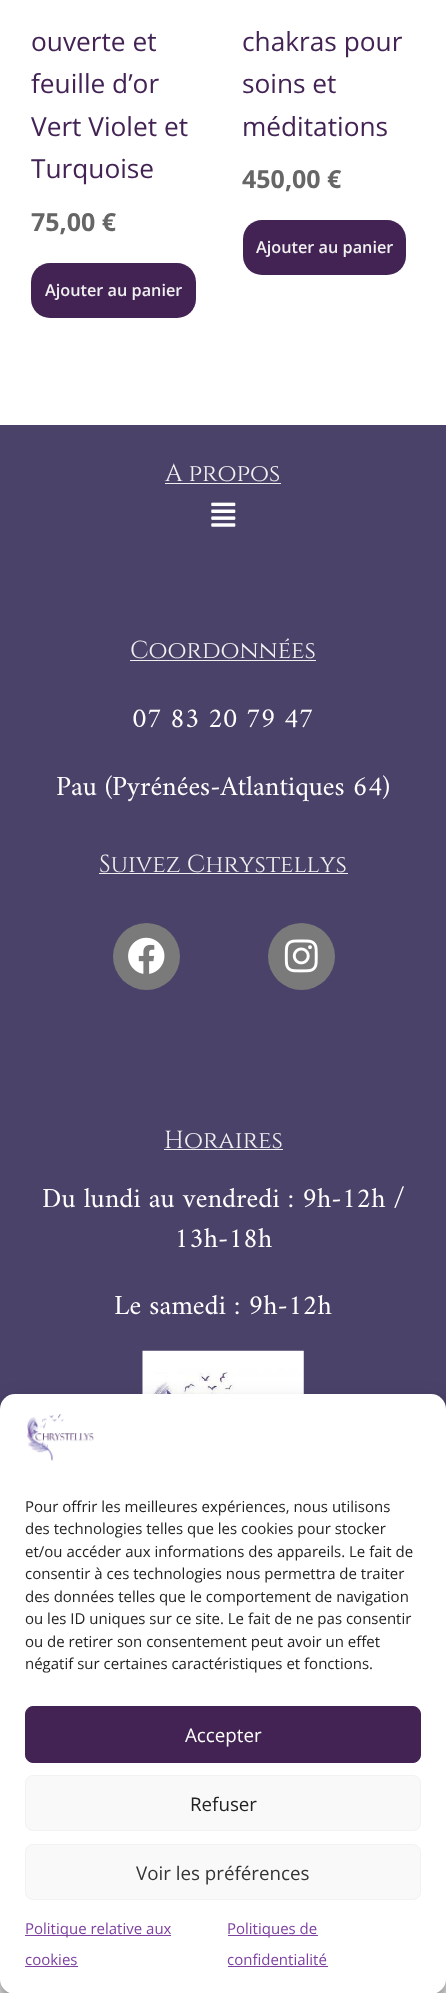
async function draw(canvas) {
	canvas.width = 446;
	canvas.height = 1993;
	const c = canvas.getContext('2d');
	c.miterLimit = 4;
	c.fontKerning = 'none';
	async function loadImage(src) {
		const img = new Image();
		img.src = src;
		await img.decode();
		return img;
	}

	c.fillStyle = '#fff';
	c.fillRect(0, 0, 446, 1993);
	c.font = '26.25px Open Sans';
	c.fillStyle = '#422354';
	for (const [text, x, y] of [
		['ouverte et', 31, 51],
		['feuille d’or', 31, 93],
		['Vert Violet et', 31, 136],
		['Turquoise', 31, 178],
	]) {
		c.fillText(text, x, y);
	}
	c.font = 'bold 25px Open Sans';
	c.fillStyle = '#666';
	c.fillText('75,00 €', 31, 231);
	c.fillStyle = '#422354';
	c.beginPath();
	c.roundRect(31, 263, 165, 55, 19);
	c.fill();
	c.font = '600 16.25px Open Sans';
	c.fillStyle = '#f1f1f1';
	c.fillText('Ajouter au panier', 45, 296);
	c.font = '26.25px Open Sans';
	c.fillStyle = '#422354';
	for (const [text, x, y] of [
		['chakras pour', 242, 51],
		['soins et', 242, 93],
		['méditations', 242, 136],
	]) {
		c.fillText(text, x, y);
	}
	c.font = 'bold 25px Open Sans';
	c.fillStyle = '#666';
	c.fillText('450,00 €', 242, 188);
	c.fillStyle = '#422354';
	c.beginPath();
	c.roundRect(243, 220, 163, 55, 19);
	c.fill();
	c.font = '600 16.25px Open Sans';
	c.fillStyle = '#f1f1f1';
	c.fillText('Ajouter au panier', 256, 253);
	c.fillStyle = '#4b4269';
	c.fillRect(0, 425, 446, 984);
	c.font = '24.5px Cinzel';
	c.fillStyle = '#f1f1f1';
	c.fillText('A propos', 165, 481);
	c.fillStyle = '#efefef';
	c.fillRect(165, 483, 116, 1);
	c.drawImage(await loadImage('img1.png'), 211, 502, 25, 25);
	c.fillStyle = '#f1f1f1';
	c.fillText('Coordonnées', 130, 658);
	c.fillStyle = '#efefef';
	c.fillRect(130, 660, 186, 1);
	c.font = '28px Amiri';
	c.fillStyle = '#fff';
	c.fillText('07 83 20 79 47', 132, 727);
	c.fillText('Pau (Pyrénées-Atlantiques 64)', 56, 795);
	c.font = '24.5px Cinzel';
	c.fillStyle = '#f1f1f1';
	c.fillText('Suivez Chrystellys', 99, 872);
	c.fillStyle = '#efefef';
	c.fillRect(99, 873, 249, 1);
	c.fillStyle = '#7a7a7a';
	c.beginPath();
	c.arc(146.5, 956.5, 33.5, 0, 2 * Math.PI);
	c.fill();
	c.drawImage(await loadImage('img2.png'), 128, 937, 37, 37);
	c.beginPath();
	c.arc(301.5, 956.5, 33.5, 0, 2 * Math.PI);
	c.fill();
	c.drawImage(await loadImage('img3.png'), 284, 939, 34, 34);
	c.fillStyle = '#f1f1f1';
	c.fillText('Horaires', 164, 1148);
	c.fillStyle = '#efefef';
	c.fillRect(164, 1149, 119, 1);
	c.font = '28px Amiri';
	c.fillStyle = '#fff';
	for (const [text, x, y] of [
		['Du lundi au vendredi : 9h-12h /', 42, 1207],
		['13h-18h', 174, 1247],
		['Le samedi : 9h-12h', 114, 1314],
	]) {
		c.fillText(text, x, y);
	}
	c.drawImage(await loadImage('img4.png'), 142, 1350, 162, 44);
	c.fillStyle = '#e4e4e4';
	c.fillRect(0, 1979, 446, 14);
	c.fillStyle = '#0000003b';
	c.filter = 'blur(4px)';
	c.beginPath();
	c.roundRect(0, 1401, 446, 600, 15);
	c.fill();
	c.filter = 'none';
	c.fillStyle = '#00000030';
	c.filter = 'blur(12.5px)';
	c.beginPath();
	c.roundRect(0, 1406, 446, 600, 15);
	c.fill();
	c.filter = 'none';
	c.fillStyle = '#fff';
	c.beginPath();
	c.roundRect(0, 1394, 446, 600, 15);
	c.fill();
	c.drawImage(await loadImage('img5.png'), 27, 1414, 67, 47);
	c.font = '15px Open Sans';
	c.fillStyle = '#222';
	for (const [text, x, y] of [
		['Pour offrir les meilleures expériences, nous utilisons', 25, 1512],
		['des technologies telles que les cookies pour stocker', 25, 1534],
		['et/ou accéder aux informations des appareils. Le fait de', 25, 1557],
		['consentir à ces technologies nous permettra de traiter', 25, 1579],
		['des données telles que le comportement de navigation', 25, 1602],
		['ou les ID uniques sur ce site. Le fait de ne pas consentir', 25, 1624],
		['ou de retirer son consentement peut avoir un effet', 25, 1647],
		['négatif sur certaines caractéristiques et fonctions.', 25, 1669],
	]) {
		c.fillText(text, x, y);
	}
	c.fillStyle = '#422354';
	c.beginPath();
	c.roundRect(25.5, 1706.5, 395, 56, 7.5);
	c.fill();
	c.strokeStyle = '#422354';
	c.stroke();
	c.font = '18.75px Open Sans';
	c.fillStyle = '#fff';
	c.fillText('Accepter', 185, 1742);
	c.fillStyle = '#f9f9f9';
	c.beginPath();
	c.roundRect(25.5, 1775.5, 395, 55, 7.5);
	c.fill();
	c.strokeStyle = '#f2f2f2';
	c.stroke();
	c.fillStyle = '#222';
	c.fillText('Refuser', 190, 1811);
	c.fillStyle = '#f9f9f9';
	c.beginPath();
	c.roundRect(25.5, 1844.5, 395, 55, 7.5);
	c.fill();
	c.stroke();
	c.fillStyle = '#333';
	c.fillText('Voir les préférences', 136, 1880);
	c.fillStyle = '#7e41a0';
	c.fillRect(25, 1935, 146, 1);
	c.font = '15px Open Sans';
	c.fillText('Politique relative aux', 25, 1934);
	c.fillText('cookies', 25, 1965);
	c.fillRect(25, 1966, 53, 1);
	c.fillRect(228, 1935, 90, 1);
	c.fillText('Politiques de', 227, 1934);
	c.fillText('confidentialité', 227, 1965);
	c.fillRect(228, 1966, 100, 1);
}

draw(document.querySelector('canvas'));
